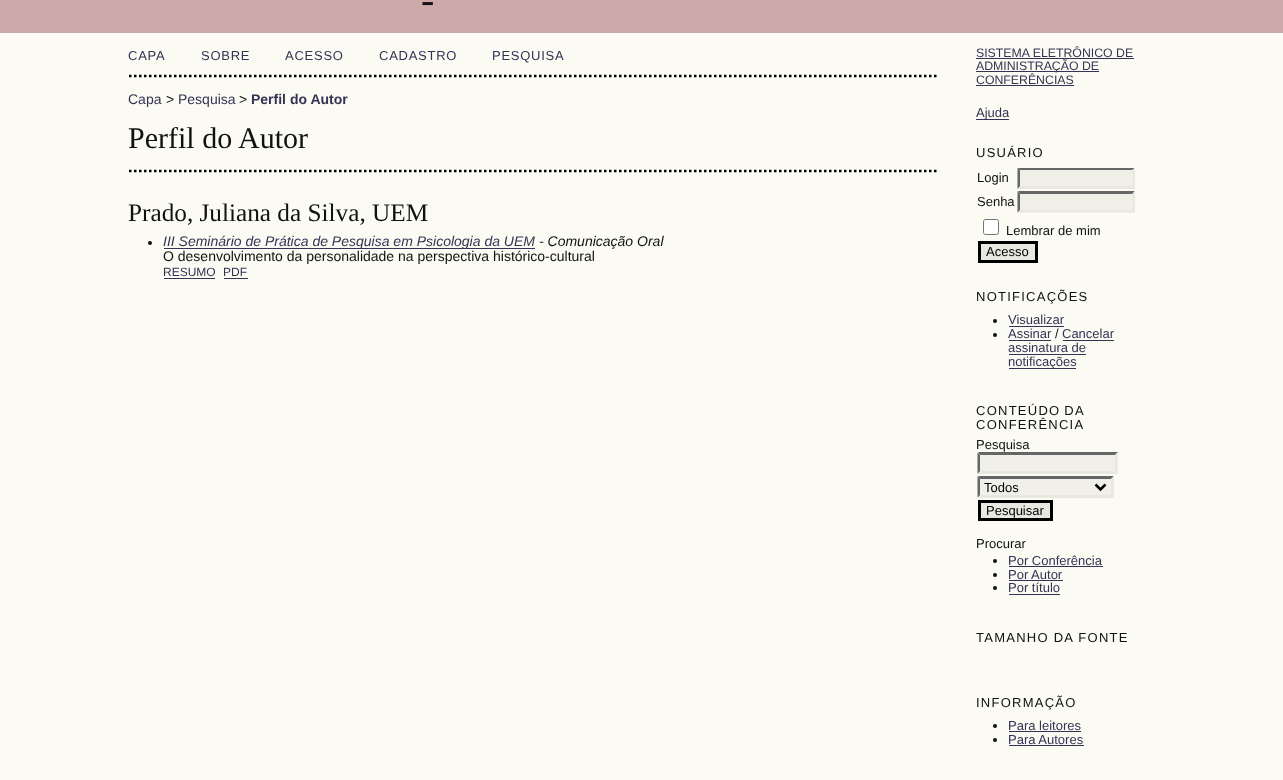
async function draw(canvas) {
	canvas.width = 1283;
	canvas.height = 780;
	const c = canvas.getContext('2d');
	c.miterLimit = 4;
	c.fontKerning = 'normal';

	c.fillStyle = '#fbfbf3';
	c.fillRect(0, 0, 1283, 780);
	c.fillStyle = '#caa';
	c.fillRect(0, 0, 1283, 33);
	c.font = '40px Liberation Serif';
	c.fillStyle = '#111';
	c.fillText('-', 421, 13);
	c.beginPath();
	c.moveTo(129, 76);
	c.lineTo(937.5, 76);
	c.strokeStyle = '#000';
	c.lineWidth = 2.5;
	c.setLineDash([2.5, 2.5]);
	c.stroke();
	c.letterSpacing = '0.75px';
	c.font = '13px Liberation Sans';
	c.fillStyle = '#335';
	for (const [text, x, y] of [
		['CAPA', 128, 60],
		['SOBRE', 201, 60],
		['ACESSO', 285, 60],
		['CADASTRO', 379, 60],
		['PESQUISA', 492, 60],
	]) {
		c.fillText(text, x, y);
	}
	c.letterSpacing = '0px';
	c.font = '14px Liberation Sans';
	c.fillText('Capa', 128, 104);
	c.fillStyle = '#111';
	c.fillText('>', 166, 104);
	c.fillStyle = '#335';
	c.fillText('Pesquisa', 178, 104);
	c.fillStyle = '#111';
	c.fillText('>', 239, 104);
	c.font = 'bold 14px Liberation Sans';
	c.fillStyle = '#335';
	c.fillText('Perfil do Autor', 251, 104);
	c.font = '30px Liberation Serif';
	c.fillStyle = '#111';
	c.fillText('Perfil do Autor', 128, 148);
	c.beginPath();
	c.moveTo(129, 171);
	c.lineTo(937.5, 171);
	c.stroke();
	c.font = '25.25px Liberation Serif';
	c.fillText('Prado, Juliana da Silva, UEM', 128, 221);
	c.beginPath();
	c.arc(150, 243, 2, 0, 2 * Math.PI);
	c.fill();
	c.fillStyle = '#335';
	c.fillRect(164, 248, 371, 1);
	c.font = 'italic 14px Liberation Sans';
	c.fillText('III Seminário de Prática de Pesquisa em Psicologia da UEM', 163, 246);
	c.fillStyle = '#111';
	c.fillText('- Comunicação Oral', 539, 246);
	c.font = '14px Liberation Sans';
	c.fillText('O desenvolvimento da personalidade na perspectiva histórico-cultural', 163, 261);
	c.font = '12px Liberation Sans';
	c.fillStyle = '#335';
	c.fillText('RESUMO', 163, 276);
	c.fillRect(164, 278, 51, 1);
	c.fillText('PDF', 223, 276);
	c.fillRect(224, 278, 24, 1);
	c.font = '12.3px Liberation Sans';
	c.fillText('SISTEMA ELETRÔNICO DE', 976, 57);
	c.fillRect(976, 58, 158, 1);
	c.fillRect(976, 71, 123, 1);
	c.fillText('ADMINISTRAÇÃO DE', 976, 70);
	c.fillText('CONFERÊNCIAS', 976, 84);
	c.fillRect(976, 85, 98, 1);
	c.fillRect(976, 119, 33, 1);
	c.font = '13px Liberation Sans';
	c.fillText('Ajuda', 976, 117);
	c.letterSpacing = '1.25px';
	c.fillStyle = '#111';
	c.fillText('USUÁRIO', 976, 157);
	c.letterSpacing = '0px';
	c.fillText('Login', 977, 182);
	c.fillStyle = '#f0f0e8';
	c.fillRect(1018, 168, 117, 21);
	c.fillStyle = '#666';
	c.beginPath();
	c.moveTo(1018, 168);
	c.lineTo(1135, 168);
	c.lineTo(1132, 170);
	c.lineTo(1020, 170);
	c.closePath();
	c.fill();
	c.fillStyle = '#e8e8e1';
	c.beginPath();
	c.moveTo(1135, 167.5);
	c.lineTo(1135, 189);
	c.lineTo(1132.5, 186);
	c.lineTo(1132.5, 170);
	c.closePath();
	c.fill();
	c.beginPath();
	c.moveTo(1135, 189);
	c.lineTo(1018, 189);
	c.lineTo(1020, 186);
	c.lineTo(1132, 186);
	c.closePath();
	c.fill();
	c.fillStyle = '#666';
	c.beginPath();
	c.moveTo(1017.5, 189);
	c.lineTo(1017.5, 167.5);
	c.lineTo(1020, 170);
	c.lineTo(1020, 186);
	c.closePath();
	c.fill();
	c.fillStyle = '#111';
	c.fillText('Senha', 977, 206);
	c.fillStyle = '#f0f0e8';
	c.fillRect(1018, 191, 117, 22);
	c.fillStyle = '#666';
	c.beginPath();
	c.moveTo(1018, 191);
	c.lineTo(1135, 191);
	c.lineTo(1132, 194);
	c.lineTo(1020, 194);
	c.closePath();
	c.fill();
	c.fillStyle = '#e8e8e1';
	c.beginPath();
	c.moveTo(1135, 191);
	c.lineTo(1135, 212.5);
	c.lineTo(1132.5, 210);
	c.lineTo(1132.5, 194);
	c.closePath();
	c.fill();
	c.beginPath();
	c.moveTo(1135, 212);
	c.lineTo(1018, 212);
	c.lineTo(1020, 210);
	c.lineTo(1132, 210);
	c.closePath();
	c.fill();
	c.fillStyle = '#666';
	c.beginPath();
	c.moveTo(1017.5, 212.5);
	c.lineTo(1017.5, 191);
	c.lineTo(1020, 194);
	c.lineTo(1020, 210);
	c.closePath();
	c.fill();
	c.fillStyle = '#fff';
	c.beginPath();
	c.roundRect(983.5, 219.5, 15, 15, 2);
	c.fill();
	c.strokeStyle = '#767676';
	c.lineWidth = 1;
	c.setLineDash([]);
	c.stroke();
	c.fillStyle = '#111';
	c.fillText('Lembrar de mim', 1006, 235);
	c.fillStyle = '#e8e8e1';
	c.beginPath();
	c.rect(979.5, 242.5, 57, 19);
	c.fill();
	c.strokeStyle = '#000';
	c.lineWidth = 3;
	c.stroke();
	c.fillStyle = '#000';
	c.fillText('Acesso', 986, 256);
	c.letterSpacing = '1.25px';
	c.fillStyle = '#111';
	c.fillText('NOTIFICAÇÕES', 976, 301);
	c.beginPath();
	c.arc(995, 321, 2, 0, 2 * Math.PI);
	c.fill();
	c.letterSpacing = '0px';
	c.fillStyle = '#335';
	c.fillText('Visualizar', 1008, 324);
	c.fillRect(1009, 326, 55, 1);
	c.fillStyle = '#111';
	c.beginPath();
	c.arc(995, 335, 2, 0, 2 * Math.PI);
	c.fill();
	c.fillStyle = '#335';
	c.fillText('Assinar', 1008, 338);
	c.fillRect(1009, 340, 42, 1);
	c.fillStyle = '#111';
	c.fillText('/', 1055, 338);
	c.fillStyle = '#335';
	c.fillText('Cancelar', 1062, 338);
	c.fillRect(1063, 340, 51, 1);
	c.fillText('assinatura de', 1008, 352);
	c.fillRect(1009, 354, 77, 1);
	c.fillRect(1009, 368, 67, 1);
	c.fillText('notificações', 1008, 366);
	c.letterSpacing = '1.25px';
	c.wordSpacing = '-1px';
	c.fillStyle = '#111';
	c.fillText('CONTEÚDO DA', 976, 415);
	c.wordSpacing = '0px';
	c.fillText('CONFERÊNCIA', 976, 429);
	c.letterSpacing = '0px';
	c.fillText('Pesquisa', 976, 449);
	c.fillStyle = '#f0f0e8';
	c.fillRect(978, 453, 140, 21);
	c.fillStyle = '#666';
	c.beginPath();
	c.moveTo(978, 452);
	c.lineTo(1118, 452);
	c.lineTo(1115, 455);
	c.lineTo(980, 455);
	c.closePath();
	c.fill();
	c.fillStyle = '#e8e8e1';
	c.beginPath();
	c.moveTo(1117.5, 452.5);
	c.lineTo(1117.5, 474);
	c.lineTo(1115, 471);
	c.lineTo(1115, 455);
	c.closePath();
	c.fill();
	c.beginPath();
	c.moveTo(1118, 474);
	c.lineTo(978, 474);
	c.lineTo(980, 471);
	c.lineTo(1115, 471);
	c.closePath();
	c.fill();
	c.fillStyle = '#666';
	c.beginPath();
	c.moveTo(977.5, 474);
	c.lineTo(977.5, 452.5);
	c.lineTo(980, 455);
	c.lineTo(980, 471);
	c.closePath();
	c.fill();
	c.fillStyle = '#f0f0e8';
	c.fillRect(978, 476, 136, 22);
	c.fillStyle = '#666';
	c.beginPath();
	c.moveTo(978, 476);
	c.lineTo(1114, 476);
	c.lineTo(1111, 479);
	c.lineTo(980, 479);
	c.closePath();
	c.fill();
	c.fillStyle = '#e8e8e1';
	c.beginPath();
	c.moveTo(1114, 476);
	c.lineTo(1114, 497.5);
	c.lineTo(1111, 495);
	c.lineTo(1111, 479);
	c.closePath();
	c.fill();
	c.beginPath();
	c.moveTo(1114, 498);
	c.lineTo(978, 498);
	c.lineTo(980, 495);
	c.lineTo(1111, 495);
	c.closePath();
	c.fill();
	c.fillStyle = '#666';
	c.beginPath();
	c.moveTo(977.5, 497.5);
	c.lineTo(977.5, 476);
	c.lineTo(980, 479);
	c.lineTo(980, 495);
	c.closePath();
	c.fill();
	c.beginPath();
	c.moveTo(1095.5, 484.5);
	c.lineTo(1100.5, 489.5);
	c.lineTo(1105.5, 484.5);
	c.lineWidth = 2.5;
	c.stroke();
	c.fillStyle = '#000';
	c.fillText('Todos', 984, 492);
	c.fillStyle = '#e8e8e1';
	c.beginPath();
	c.rect(979.5, 501.5, 72, 18);
	c.fill();
	c.lineWidth = 3;
	c.stroke();
	c.fillStyle = '#000';
	c.fillText('Pesquisar', 986, 515);
	c.fillStyle = '#111';
	c.fillText('Procurar', 976, 548);
	c.beginPath();
	c.arc(995, 561, 2, 0, 2 * Math.PI);
	c.fill();
	c.fillStyle = '#335';
	c.fillText('Por Conferência', 1008, 565);
	c.fillRect(1009, 566, 94, 1);
	c.fillStyle = '#111';
	c.beginPath();
	c.arc(995, 575, 2, 0, 2 * Math.PI);
	c.fill();
	c.fillStyle = '#335';
	c.fillText('Por Autor', 1008, 579);
	c.fillRect(1009, 580, 54, 1);
	c.fillStyle = '#111';
	c.beginPath();
	c.arc(995, 588, 2, 0, 2 * Math.PI);
	c.fill();
	c.fillStyle = '#335';
	c.fillText('Por título', 1008, 592);
	c.fillRect(1009, 594, 51, 1);
	c.letterSpacing = '1.25px';
	c.fillStyle = '#111';
	c.fillText('TAMANHO DA FONTE', 976, 642);
	c.fillText('INFORMAÇÃO', 976, 707);
	c.beginPath();
	c.arc(995, 726, 2, 0, 2 * Math.PI);
	c.fill();
	c.letterSpacing = '0px';
	c.fillStyle = '#335';
	c.fillText('Para leitores', 1008, 730);
	c.fillRect(1009, 731, 72, 1);
	c.fillStyle = '#111';
	c.beginPath();
	c.arc(995, 740, 2, 0, 2 * Math.PI);
	c.fill();
	c.fillStyle = '#335';
	c.fillText('Para Autores', 1008, 744);
	c.fillRect(1009, 745, 75, 1);
}

draw(document.querySelector('canvas'));
